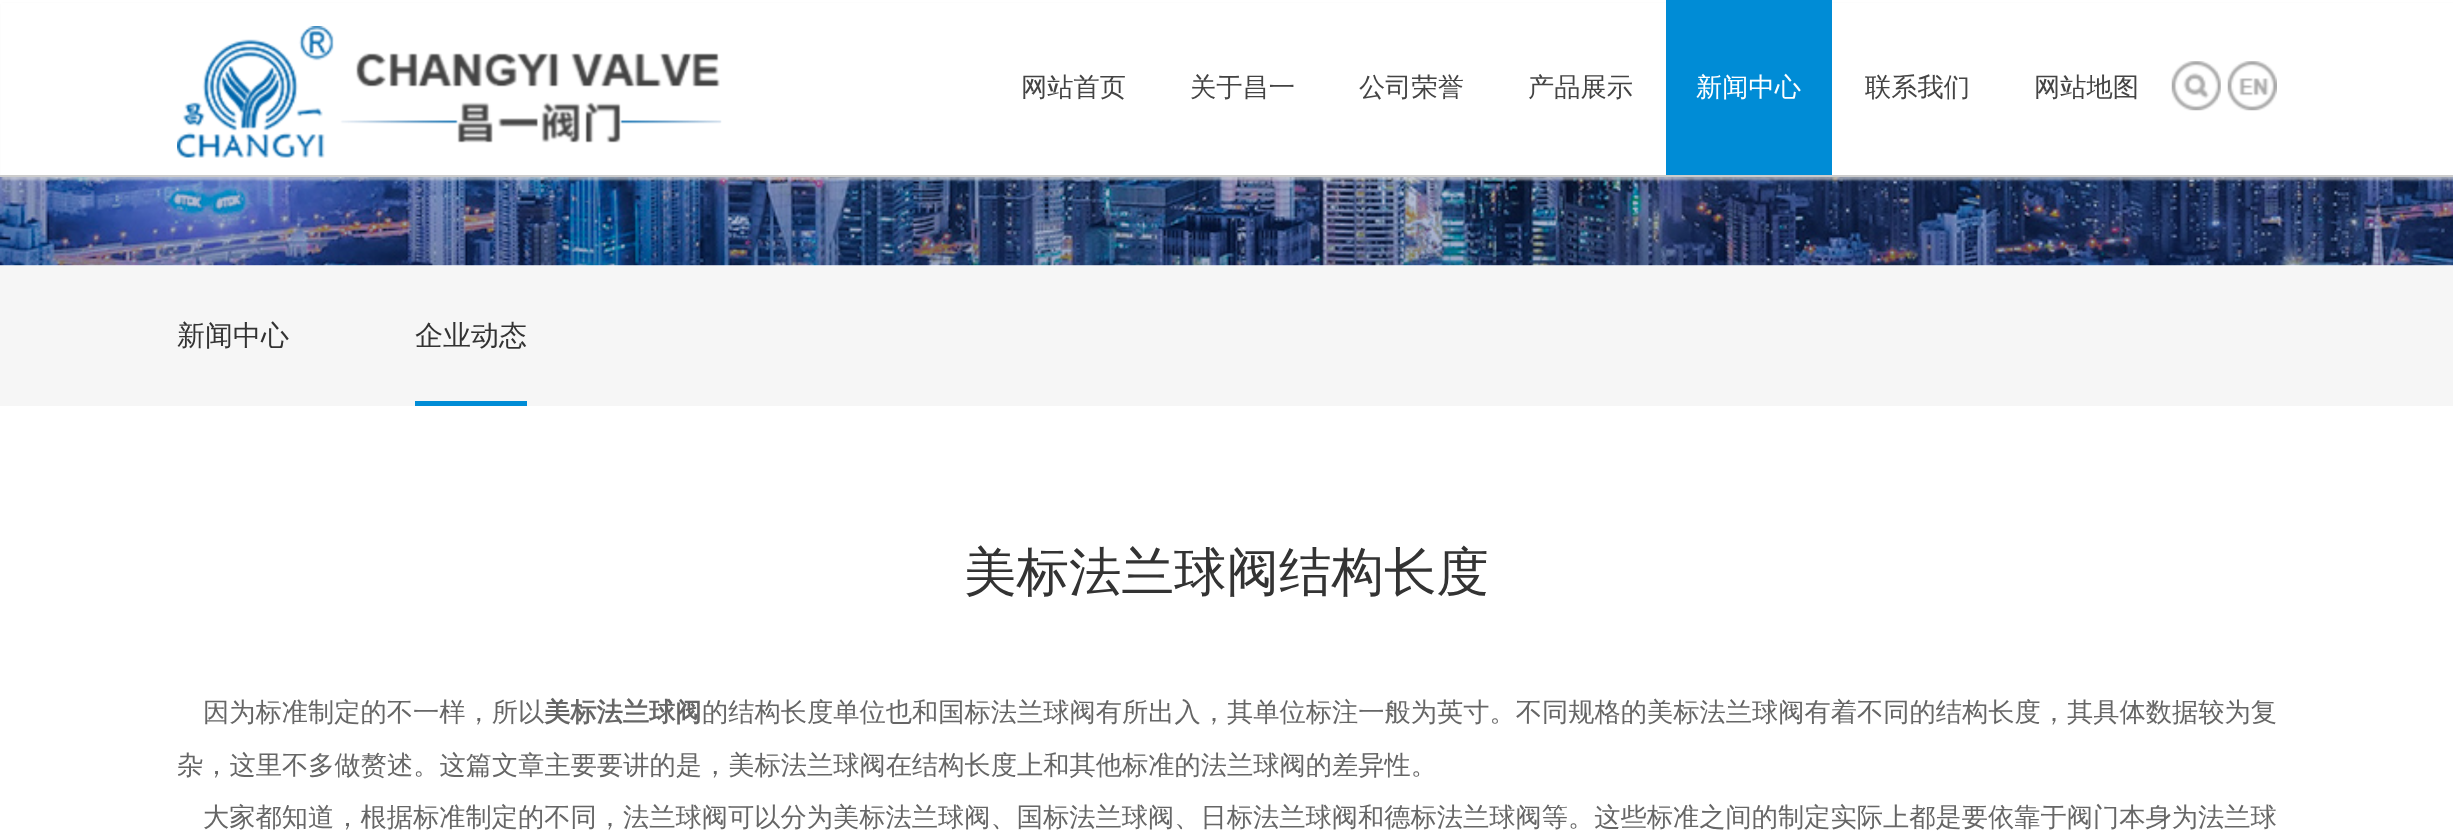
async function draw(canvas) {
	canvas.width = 2453;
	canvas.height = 831;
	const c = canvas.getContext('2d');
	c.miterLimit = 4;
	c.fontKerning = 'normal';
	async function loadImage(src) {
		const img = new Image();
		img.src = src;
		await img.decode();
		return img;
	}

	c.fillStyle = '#fff';
	c.fillRect(0, 0, 2453, 831);
	c.drawImage(await loadImage('img4.png'), 0, 177, 2453, 89);
	c.fillStyle = '#dedede99';
	c.filter = 'blur(1px)';
	c.beginPath();
	c.rect(2, 4, 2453, 176);
	c.fill();
	c.filter = 'none';
	c.fillStyle = '#fff';
	c.fillRect(1, 3, 2452, 172);
	c.fillStyle = '#ccc';
	c.fillRect(0, 175, 2453, 2);
	c.drawImage(await loadImage('img1.png'), 177, 26, 545, 132);
	c.font = '500 26.25px WenQuanYi Zen Hei';
	c.fillStyle = '#444';
	for (const [text, x, y] of [
		['网站首页', 1021, 96],
		['关于昌一', 1190, 96],
		['公司荣誉', 1359, 96],
		['产品展示', 1528, 96],
	]) {
		c.fillText(text, x, y);
	}
	c.fillStyle = '#008cd6';
	c.fillRect(1666, 0, 166, 175);
	c.fillStyle = '#fff';
	c.fillText('新闻中心', 1696, 96);
	c.fillStyle = '#444';
	c.fillText('联系我们', 1865, 96);
	c.fillText('网站地图', 2034, 96);
	c.drawImage(await loadImage('img2.png'), 2171, 61, 50, 50);
	c.drawImage(await loadImage('img3.png'), 2227, 61, 50, 50);
	c.fillStyle = '#f6f6f6';
	c.fillRect(0, 266, 2453, 140);
	c.font = '500 28px WenQuanYi Zen Hei';
	c.fillStyle = '#333';
	c.fillText('新闻中心', 177, 345);
	c.fillStyle = '#008cd6';
	c.fillRect(415, 401, 112, 5);
	c.fillStyle = '#333';
	c.fillText('企业动态', 415, 345);
	c.font = '500 52.5px WenQuanYi Zen Hei';
	c.fillText('美标法兰球阀结构长度', 964, 590);
	c.font = '500 26.25px WenQuanYi Zen Hei';
	c.fillStyle = '#666';
	c.fillText('因为标准制定的不一样，所以', 203, 721);
	c.font = 'bold 26.25px WenQuanYi Zen Hei';
	c.fillText('美标法兰球阀', 544, 721);
	c.font = '500 26.25px WenQuanYi Zen Hei';
	for (const [text, x, y] of [
		['的结构长度单位也和国标法兰球阀有所出入，其单位标注一般为英寸。不同规格的美标法兰球阀有着不同的结构长度，其具体数据较为复', 702, 721],
		['杂，这里不多做赘述。这篇文章主要要讲的是，美标法兰球阀在结构长度上和其他标准的法兰球阀的差异性。', 177, 774],
		['大家都知道，根据标准制定的不同，法兰球阀可以分为美标法兰球阀、国标法兰球阀、日标法兰球阀和德标法兰球阀等。这些标准之间的制定实际上都是要依靠于阀门本身为法兰球', 203, 826],
	]) {
		c.fillText(text, x, y);
	}
}

draw(document.querySelector('canvas'));
